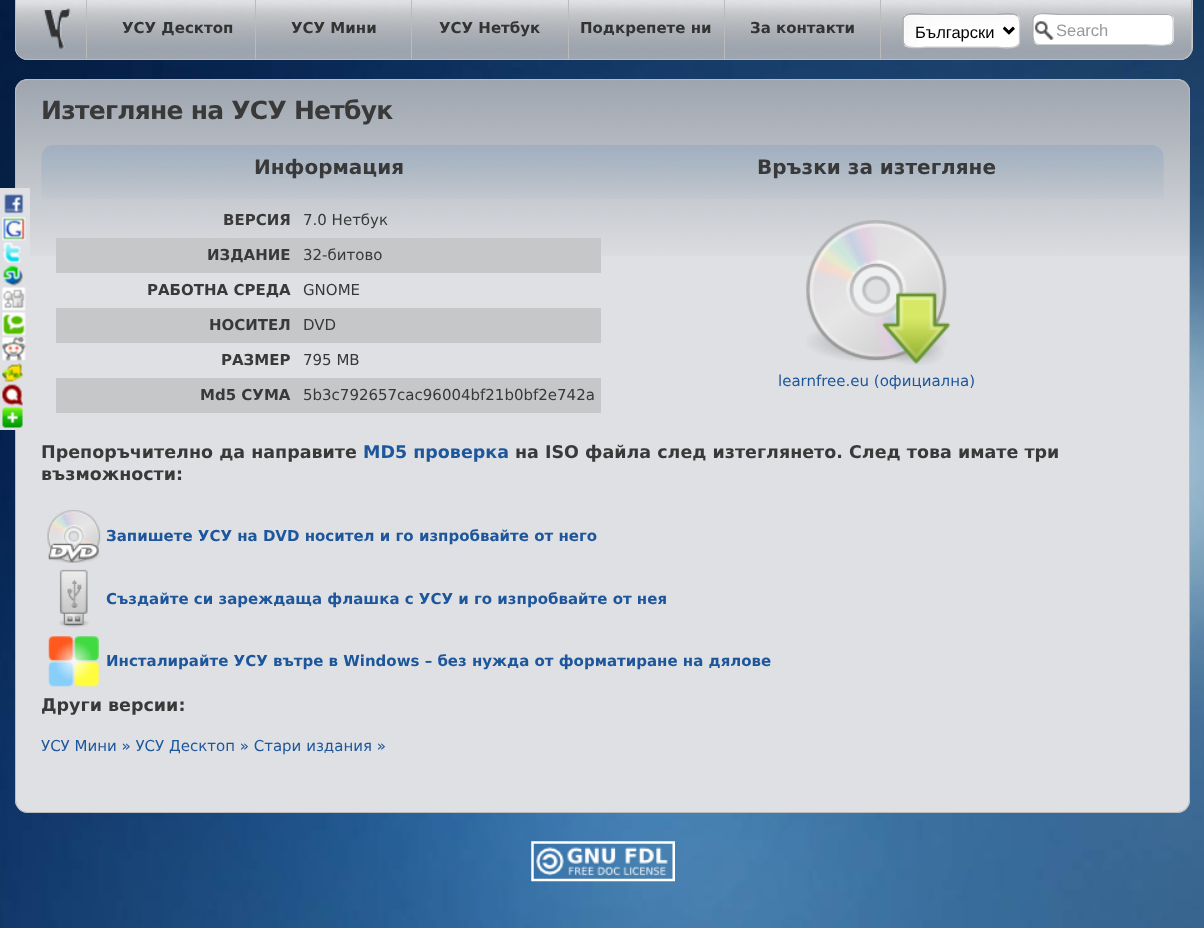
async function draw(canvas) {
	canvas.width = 1204;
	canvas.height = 928;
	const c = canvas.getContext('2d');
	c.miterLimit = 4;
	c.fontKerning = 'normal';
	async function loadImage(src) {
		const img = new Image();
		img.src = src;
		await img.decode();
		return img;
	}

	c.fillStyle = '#fff';
	c.fillRect(0, 0, 1204, 928);
	c.drawImage(await loadImage('img1.png'), 0, 0, 1204, 928);
	c.fillStyle = '#dfe0e3';
	c.beginPath();
	c.roundRect(15, 79, 1175, 734, 13);
	c.fill();
	c.drawImage(await loadImage('img16.png'), 15, 80, 1175, 176);
	c.beginPath();
	c.roundRect(15.5, 79.5, 1174, 733, 12.5);
	c.strokeStyle = '#bbb';
	c.stroke();
	c.fillRect(0, 188, 30, 242);
	c.drawImage(await loadImage('img2.png'), 4, 194, 20, 20);
	c.drawImage(await loadImage('img3.png'), 2, 217, 24, 24);
	c.drawImage(await loadImage('img4.png'), 3, 242, 18, 21);
	c.drawImage(await loadImage('img5.png'), 3, 265, 20, 21);
	c.drawImage(await loadImage('img6.png'), 2, 287, 24, 24);
	c.drawImage(await loadImage('img7.png'), 2, 312, 24, 24);
	c.drawImage(await loadImage('img8.png'), 2, 337, 24, 24);
	c.drawImage(await loadImage('img9.png'), 2, 363, 21, 19);
	c.drawImage(await loadImage('img10.png'), 2, 384, 21, 22);
	c.drawImage(await loadImage('img11.png'), 2, 407, 21, 21);
	c.fillStyle = '#d5d5d5';
	c.beginPath();
	c.roundRect(15, 0, 1178, 60, [0, 0, 13, 13]);
	c.fill();
	c.drawImage(await loadImage('img12.png'), 15, 0, 1178, 60);
	c.fillStyle = '#bbb';
	c.beginPath();
	c.moveTo(15, 0);
	c.lineTo(1192, 0);
	c.lineTo(1192, 48);
	c.bezierCurveTo(1192, 54, 1187, 60, 1180, 60);
	c.lineTo(28, 60);
	c.bezierCurveTo(21, 60, 15, 54, 15, 48);
	c.closePath();
	c.moveTo(16, 0);
	c.lineTo(1191, 0);
	c.lineTo(1191, 48);
	c.bezierCurveTo(1191, 54, 1186, 59, 1180, 59);
	c.lineTo(28, 59);
	c.bezierCurveTo(21, 59, 16, 54, 16, 48);
	c.closePath();
	c.fill('evenodd');
	c.fillRect(86, 0, 1, 58);
	c.drawImage(await loadImage('img13.png'), 43, 8, 28, 41);
	c.fillRect(255, 0, 1, 59);
	c.font = 'bold 15px DejaVu Sans';
	c.fillStyle = '#333';
	c.fillText('УСУ Десктоп', 122, 33);
	c.fillStyle = '#bbb';
	c.fillRect(411, 0, 1, 59);
	c.fillStyle = '#333';
	c.fillText('УСУ Мини', 291, 33);
	c.fillStyle = '#bbb';
	c.fillRect(568, 0, 1, 59);
	c.fillStyle = '#333';
	c.fillText('УСУ Нетбук', 439, 33);
	c.fillStyle = '#bbb';
	c.fillRect(724, 0, 1, 59);
	c.fillStyle = '#333';
	c.fillText('Подкрепете ни', 580, 33);
	c.fillStyle = '#bbb';
	c.fillRect(880, 0, 1, 59);
	c.fillStyle = '#333';
	c.fillText('За контакти', 750, 33);
	c.drawImage(await loadImage('img14.png'), 903, 15, 117, 33);
	c.beginPath();
	c.moveTo(1017.5, 16);
	c.bezierCurveTo(1021, 19, 1019.5, 27, 1019.5, 30.5);
	c.lineTo(1019.5, 42.5);
	c.bezierCurveTo(1017.5, 51, 998, 47, 996, 47);
	c.lineTo(926, 47);
	c.bezierCurveTo(925, 47, 909, 49.5, 905, 45);
	c.strokeStyle = '#ccc';
	c.lineWidth = 1.2;
	c.stroke();
	c.beginPath();
	c.moveTo(905, 45);
	c.bezierCurveTo(901.5, 42, 903, 34.5, 903, 30.5);
	c.lineTo(903, 19);
	c.bezierCurveTo(905, 10.5, 924.5, 14.5, 926, 14.5);
	c.lineTo(996, 14.5);
	c.bezierCurveTo(997.5, 14.5, 1013.5, 11.5, 1017.5, 16);
	c.strokeStyle = '#aaa';
	c.stroke();
	c.beginPath();
	c.moveTo(1004, 28);
	c.lineTo(1009, 33);
	c.lineTo(1014, 28);
	c.strokeStyle = '#000';
	c.lineWidth = 2.5;
	c.stroke();
	c.font = '16.5px Liberation Sans';
	c.fillStyle = '#000';
	c.fillText('Български', 915, 38);
	c.fillStyle = '#fff';
	c.beginPath();
	c.roundRect(1033, 14, 141, 31, 6);
	c.fill();
	c.drawImage(await loadImage('img15.png'), 1034, 21, 20, 19);
	c.beginPath();
	c.moveTo(1171.5, 16);
	c.bezierCurveTo(1174.5, 19, 1173, 25.5, 1173, 29.5);
	c.lineTo(1173, 40);
	c.bezierCurveTo(1171.5, 48, 1154, 44.5, 1146, 44.5);
	c.lineTo(1039, 44.5);
	c.bezierCurveTo(1037.5, 44.5, 1036, 44, 1035, 42.5);
	c.strokeStyle = '#ccc';
	c.lineWidth = 1.2;
	c.stroke();
	c.beginPath();
	c.moveTo(1035, 42.5);
	c.bezierCurveTo(1032, 39.5, 1033, 33, 1033, 29.5);
	c.lineTo(1033, 19);
	c.bezierCurveTo(1035, 10.5, 1052.5, 14.5, 1060, 14.5);
	c.lineTo(1167.5, 14.5);
	c.bezierCurveTo(1169, 14.5, 1170.5, 15, 1171.5, 16);
	c.strokeStyle = '#aaa';
	c.stroke();
	c.fillStyle = '#999';
	c.fillText('Search', 1056, 36);
	c.letterSpacing = '-0.75px';
	c.font = 'bold 25px DejaVu Sans';
	c.fillStyle = '#393939';
	c.fillText('Изтегляне на УСУ Нетбук', 41, 119);
	c.drawImage(await loadImage('img17.png'), 41, 145, 1123, 54);
	c.letterSpacing = '0px';
	c.font = 'bold 20px DejaVu Sans';
	c.fillText('Информация', 254, 174);
	c.fillText('Връзки за изтегляне', 757, 174);
	c.font = 'bold 15px DejaVu Sans';
	c.fillText('ВЕРСИЯ', 223, 225);
	c.font = '15px DejaVu Sans';
	c.fillText('7.0 Нетбук', 303, 225);
	c.fillStyle = '#c6c7c9';
	c.fillRect(56, 238, 545, 35);
	c.font = 'bold 15px DejaVu Sans';
	c.fillStyle = '#393939';
	c.fillText('ИЗДАНИЕ', 207, 260);
	c.font = '15px DejaVu Sans';
	c.fillText('32-битово', 303, 260);
	c.font = 'bold 15px DejaVu Sans';
	c.fillText('РАБОТНА СРЕДА', 147, 295);
	c.font = '15px DejaVu Sans';
	c.fillText('GNOME', 303, 295);
	c.fillStyle = '#c6c7c9';
	c.fillRect(56, 308, 545, 35);
	c.font = 'bold 15px DejaVu Sans';
	c.fillStyle = '#393939';
	c.fillText('НОСИТЕЛ', 209, 330);
	c.font = '15px DejaVu Sans';
	c.fillText('DVD', 303, 330);
	c.font = 'bold 15px DejaVu Sans';
	c.fillText('РАЗМЕР', 221, 365);
	c.font = '15px DejaVu Sans';
	c.fillText('795 MB', 303, 365);
	c.fillStyle = '#c6c7c9';
	c.fillRect(56, 378, 545, 35);
	c.font = 'bold 15px DejaVu Sans';
	c.fillStyle = '#393939';
	c.fillText('Md5 СУМА', 200, 400);
	c.font = '15px DejaVu Sans';
	c.fillText('5b3c792657cac96004bf21b0bf2e742a', 303, 400);
	c.drawImage(await loadImage('img18.png'), 806, 220, 145, 145);
	c.fillStyle = '#1d569b';
	c.fillText('learnfree.eu (официална)', 778, 386);
	c.font = 'bold 17.5px DejaVu Sans';
	c.fillStyle = '#393939';
	c.fillText('Препоръчително да направите', 41, 458);
	c.fillStyle = '#1d569b';
	c.fillText('MD5 проверка', 363, 458);
	c.fillStyle = '#393939';
	c.fillText('на ISO файла след изтеглянето. След това имате три', 515, 458);
	c.fillText('възможности:', 41, 480);
	c.drawImage(await loadImage('img19.png'), 47, 510, 54, 53);
	c.font = 'bold 15px DejaVu Sans';
	c.fillStyle = '#1d569b';
	c.fillText('Запишете УСУ на DVD носител и го изпробвайте от него', 106, 541);
	c.drawImage(await loadImage('img20.png'), 59, 569, 30, 59);
	c.fillText('Създайте си зареждаща флашка с УСУ и го изпробвайте от нея', 106, 604);
	c.drawImage(await loadImage('img21.png'), 48, 636, 51, 51);
	c.fillText('Инсталирайте УСУ вътре в Windows – без нужда от форматиране на дялове', 106, 666);
	c.font = 'bold 17.5px DejaVu Sans';
	c.fillStyle = '#393939';
	c.fillText('Други версии:', 41, 711);
	c.font = '15px DejaVu Sans';
	c.fillStyle = '#1d569b';
	c.fillText('УСУ Мини » УСУ Десктоп » Стари издания »', 41, 751);
	c.drawImage(await loadImage('img22.png'), 531, 841, 144, 41);
}

draw(document.querySelector('canvas'));
